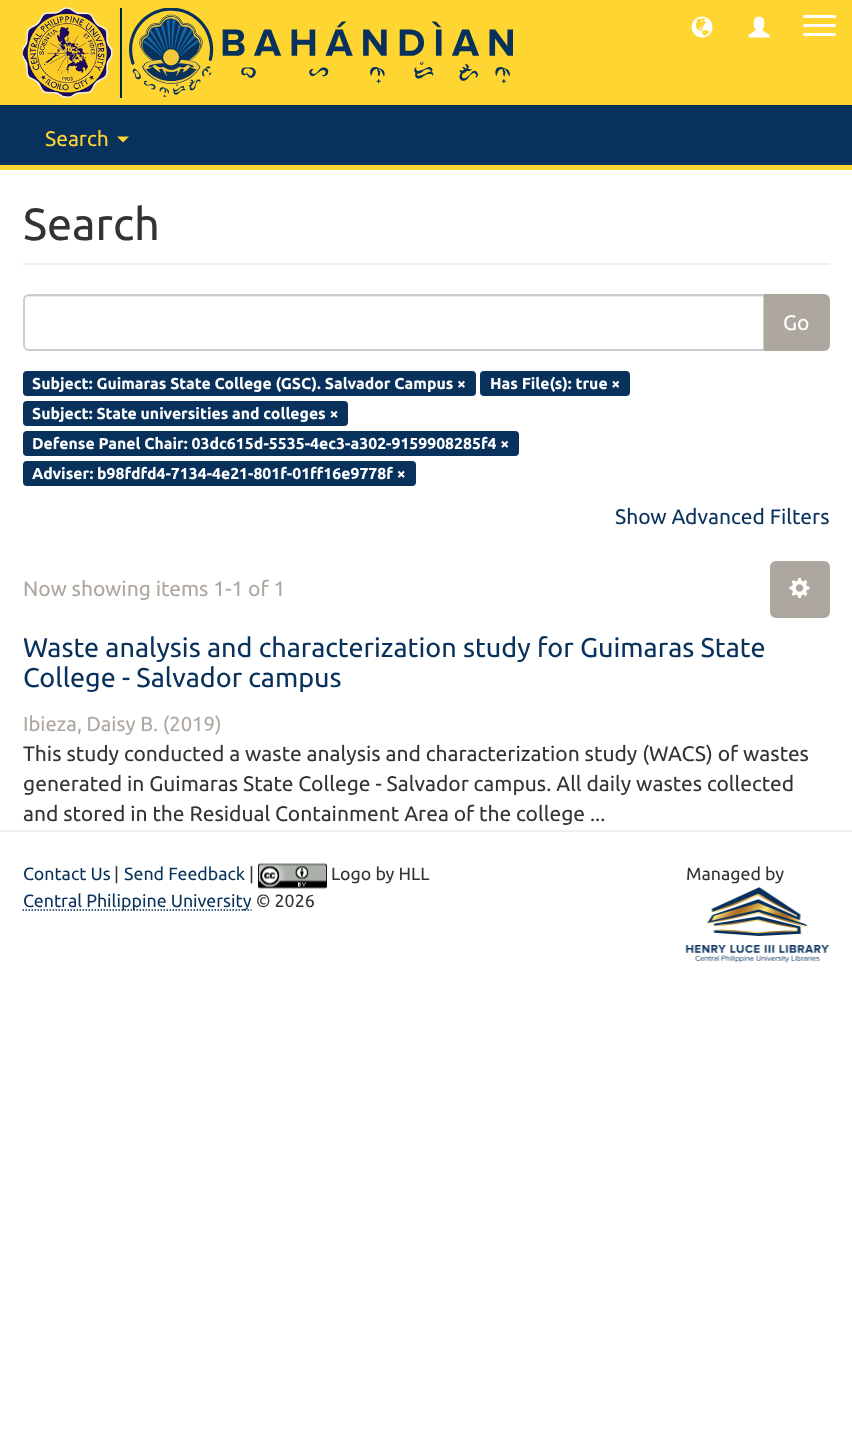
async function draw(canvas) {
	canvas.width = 852;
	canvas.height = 1450;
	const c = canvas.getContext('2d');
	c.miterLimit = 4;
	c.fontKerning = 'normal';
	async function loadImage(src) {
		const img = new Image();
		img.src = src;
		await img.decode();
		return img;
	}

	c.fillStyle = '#fff';
	c.fillRect(0, 0, 852, 1450);
	c.fillStyle = '#fed531';
	c.fillRect(0, 0, 852, 105);
	c.drawImage(await loadImage('img1.png'), 22, 7, 91, 91);
	c.fillStyle = '#002147';
	c.fillRect(120, 8, 2, 90);
	c.drawImage(await loadImage('img2.png'), 129, 8, 384, 90);
	c.drawImage(await loadImage('img3.png'), 691, 16, 22, 22);
	c.drawImage(await loadImage('img4.png'), 748, 16, 22, 22);
	c.fillStyle = '#fff';
	c.beginPath();
	c.roundRect(803, 15, 33, 3, 1.5);
	c.fill();
	c.beginPath();
	c.roundRect(803, 24, 33, 3, 1.5);
	c.fill();
	c.beginPath();
	c.roundRect(803, 33, 33, 3, 1.5);
	c.fill();
	c.fillStyle = '#08315c';
	c.fillRect(0, 105, 852, 60);
	c.fillStyle = '#fed531';
	c.fillRect(0, 165, 852, 5);
	c.font = '21px Ubuntu';
	c.fillText('Search', 45, 146);
	c.beginPath();
	c.moveTo(117, 136.5);
	c.lineTo(129, 136.5);
	c.lineTo(123, 142.5);
	c.closePath();
	c.fill();
	c.fillStyle = '#eee';
	c.fillRect(23, 263, 807, 2);
	c.font = '45px Ubuntu';
	c.fillStyle = '#333';
	c.fillText('Search', 23, 240);
	c.fillStyle = '#ececec';
	c.beginPath();
	c.moveTo(28, 297);
	c.lineTo(764, 297);
	c.lineTo(764, 296);
	c.lineTo(29, 296);
	c.bezierCurveTo(26, 296, 24, 299, 24, 302);
	c.bezierCurveTo(24, 299, 26, 297, 28, 297);
	c.closePath();
	c.fill();
	c.beginPath();
	c.roundRect(24, 295, 740, 55, [5, 0, 0, 5]);
	c.strokeStyle = '#ccc';
	c.lineWidth = 2;
	c.stroke();
	c.fillStyle = '#aea79f';
	c.beginPath();
	c.roundRect(765, 295, 64, 55, [0, 5, 5, 0]);
	c.fill();
	c.strokeStyle = '#aea79f';
	c.stroke();
	c.font = '21px Ubuntu';
	c.fillStyle = '#fff';
	c.fillText('Go', 783, 330);
	c.fillStyle = '#08315c';
	c.beginPath();
	c.roundRect(23, 371, 453, 25, 4);
	c.fill();
	c.font = 'bold 15.75px Ubuntu';
	c.fillStyle = '#fff';
	c.fillText('Subject: Guimaras State College (GSC). Salvador Campus ×', 32, 389);
	c.fillStyle = '#08315c';
	c.beginPath();
	c.roundRect(480, 371, 150, 25, 4);
	c.fill();
	c.fillStyle = '#fff';
	c.fillText('Has File(s): true ×', 490, 389);
	c.fillStyle = '#08315c';
	c.beginPath();
	c.roundRect(23, 401, 325, 25, 4);
	c.fill();
	c.fillStyle = '#fff';
	c.fillText('Subject: State universities and colleges ×', 32, 419);
	c.fillStyle = '#08315c';
	c.beginPath();
	c.roundRect(23, 431, 496, 25, 4);
	c.fill();
	c.fillStyle = '#fff';
	c.fillText('Defense Panel Chair: 03dc615d-5535-4ec3-a302-9159908285f4 ×', 32, 449);
	c.fillStyle = '#08315c';
	c.beginPath();
	c.roundRect(23, 461, 393, 25, 4);
	c.fill();
	c.fillStyle = '#fff';
	c.fillText('Adviser: b98fdfd4-7134-4e21-801f-01ff16e9778f ×', 32, 479);
	c.font = '21px Ubuntu';
	c.fillStyle = '#08315c';
	c.fillText('Show Advanced Filters', 615, 524);
	c.fillStyle = '#aea79f';
	c.fillText('Now showing items 1-1 of 1', 23, 596);
	c.beginPath();
	c.roundRect(771, 562, 58, 55, 5);
	c.fill();
	c.stroke();
	c.drawImage(await loadImage('img5.png'), 789, 578, 21, 20);
	c.font = '27px Ubuntu';
	c.fillStyle = '#08315c';
	c.fillText('Waste analysis and characterization study for Guimaras State', 23, 657);
	c.fillText('College - Salvador campus', 23, 687);
	c.font = '20.25px Ubuntu';
	c.fillStyle = '#aea79f';
	c.fillText('Ibieza, Daisy B. (2019)', 23, 731);
	c.font = '21px Ubuntu';
	c.fillStyle = '#333';
	for (const [text, x, y] of [
		['This study conducted a waste analysis and characterization study (WACS) of wastes', 23, 761],
		['generated in Guimaras State College - Salvador campus. All daily wastes collected', 23, 791],
		['and stored in the Residual Containment Area of the college ...', 23, 821],
	]) {
		c.fillText(text, x, y);
	}
	c.fillStyle = '#eee';
	c.fillRect(0, 830, 852, 2);
	c.font = '17.8px Ubuntu';
	c.fillStyle = '#08315c';
	c.fillText('Contact Us', 23, 880);
	c.fillStyle = '#333';
	c.fillText('|', 114, 880);
	c.fillStyle = '#08315c';
	c.fillText('Send Feedback', 124, 880);
	c.fillStyle = '#333';
	c.fillText('|', 249, 880);
	c.drawImage(await loadImage('img6.png'), 258, 863, 69, 26);
	c.fillText('Logo by HLL', 331, 880);
	c.beginPath();
	c.moveTo(22.5, 910);
	c.lineTo(251.5, 910);
	c.strokeStyle = '#08315c';
	c.lineWidth = 1.5;
	c.setLineDash([1.5, 1.5]);
	c.stroke();
	c.fillStyle = '#08315c';
	c.fillText('Central Philippine University', 23, 907);
	c.fillStyle = '#333';
	c.fillText('© 2026', 256, 907);
	c.fillText('Managed by', 686, 880);
	c.drawImage(await loadImage('img7.png'), 685, 887, 144, 76);
}

draw(document.querySelector('canvas'));
